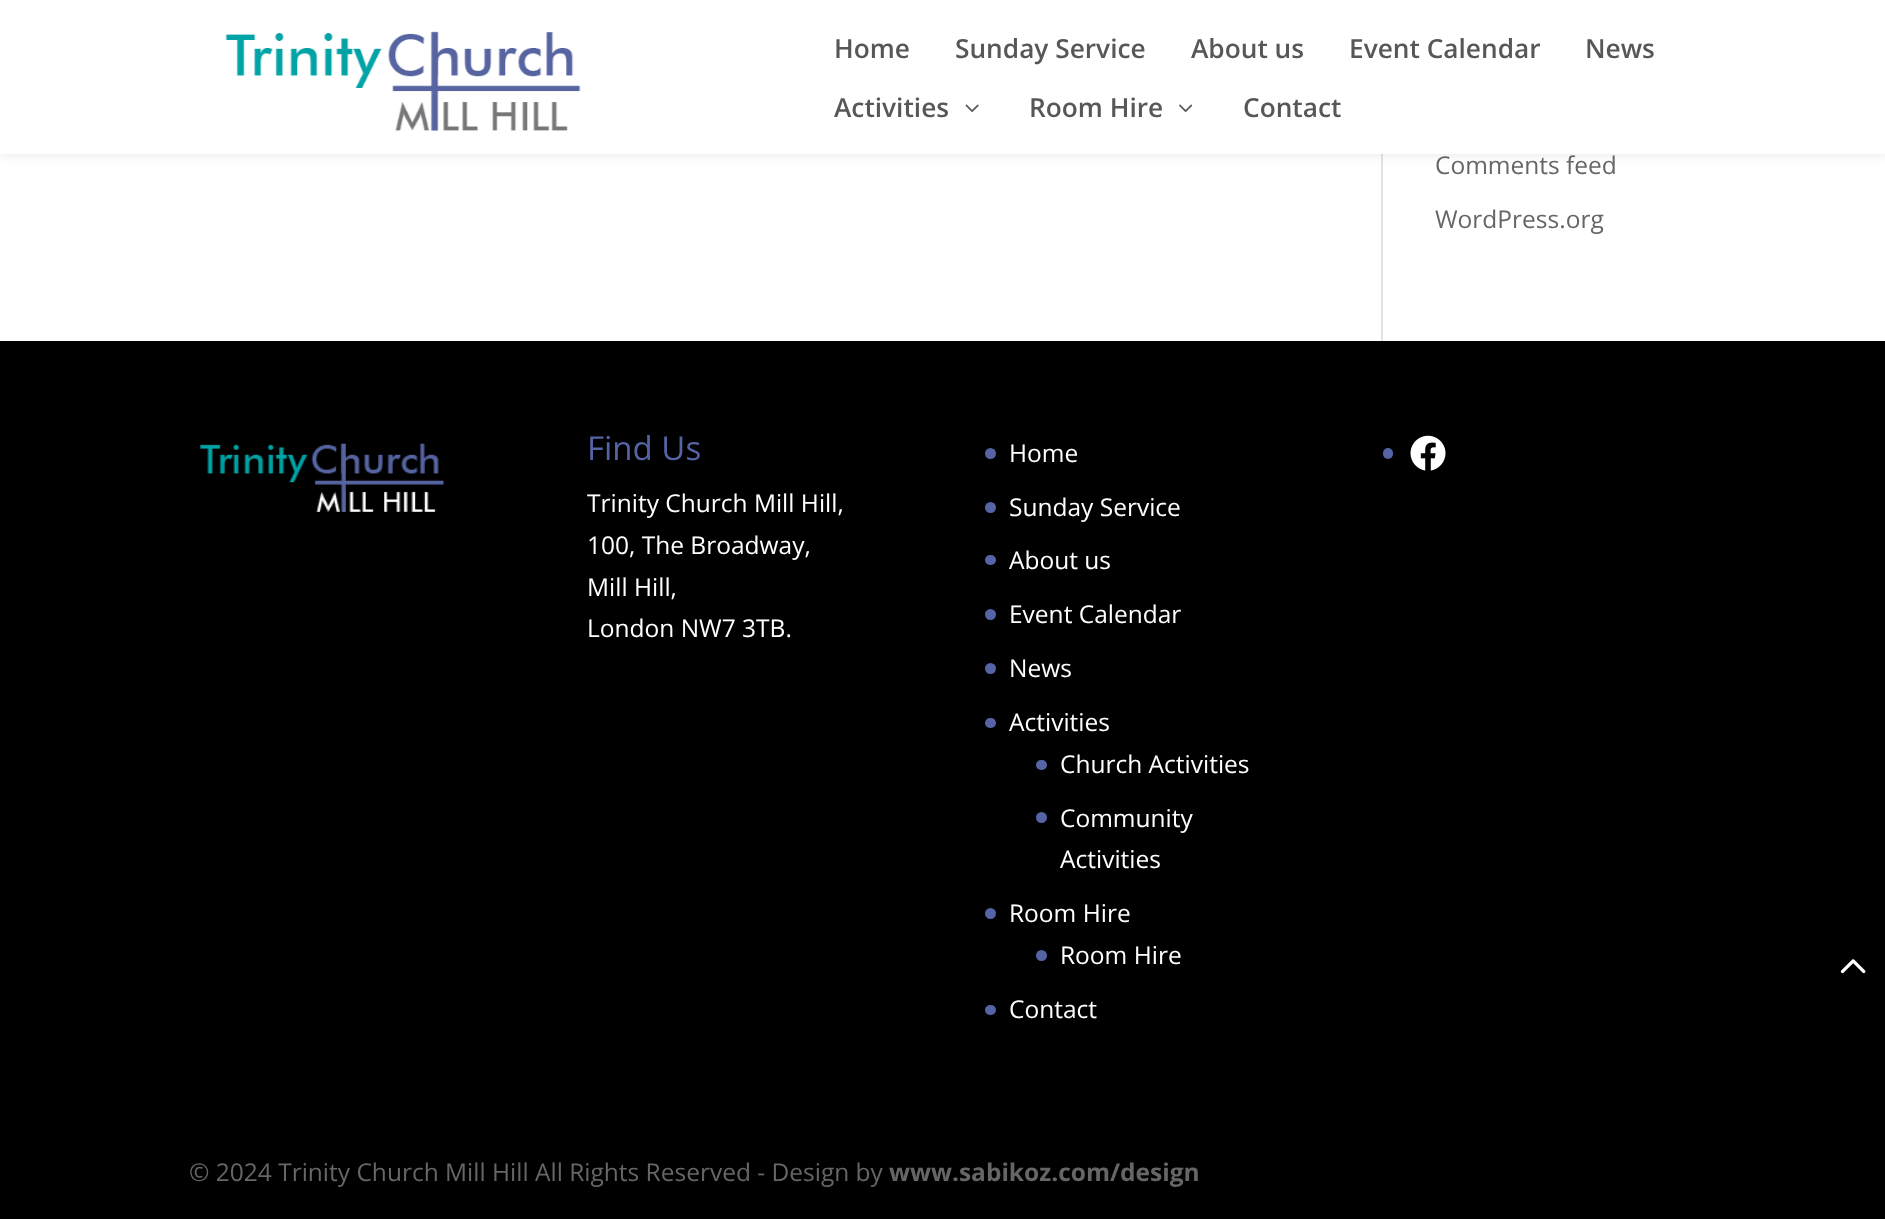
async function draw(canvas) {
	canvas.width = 1885;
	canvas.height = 1219;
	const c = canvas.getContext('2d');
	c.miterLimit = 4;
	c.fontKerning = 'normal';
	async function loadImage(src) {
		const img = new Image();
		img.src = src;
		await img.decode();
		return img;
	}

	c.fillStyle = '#fff';
	c.fillRect(0, 0, 1885, 1219);
	c.fillStyle = '#e2e2e2';
	c.fillRect(1381, 154, 2, 187);
	c.fillStyle = '#0000001a';
	c.filter = 'blur(6px)';
	c.beginPath();
	c.rect(0, 0, 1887, 154);
	c.fill();
	c.filter = 'none';
	c.fillStyle = '#fff';
	c.fillRect(0, 0, 1885, 154);
	c.drawImage(await loadImage('img1.png'), 225, 31, 356, 101);
	c.font = '600 26.25px Open Sans';
	c.fillStyle = '#575757';
	for (const [text, x, y] of [
		['Home', 834, 58],
		['Sunday Service', 955, 58],
		['About us', 1191, 58],
		['Event Calendar', 1349, 58],
		['News', 1585, 58],
		['Activities', 834, 117],
	]) {
		c.fillText(text, x, y);
	}
	c.drawImage(await loadImage('img2.png'), 965, 104, 14, 8);
	c.fillText('Room Hire', 1029, 117);
	c.drawImage(await loadImage('img3.png'), 1179, 104, 14, 8);
	c.fillText('Contact', 1243, 117);
	c.font = '24.5px Open Sans';
	c.fillStyle = '#666';
	c.fillText('Comments feed', 1435, 174);
	c.fillText('WordPress.org', 1435, 228);
	c.fillStyle = '#000';
	c.fillRect(0, 341, 1885, 878);
	c.drawImage(await loadImage('img4.png'), 200, 443, 244, 69);
	c.font = '33px Open Sans';
	c.fillStyle = '#5564a5';
	c.fillText('Find Us', 587, 460);
	c.font = '24.5px Open Sans';
	c.fillStyle = '#fff';
	for (const [text, x, y] of [
		['Trinity Church Mill Hill,', 587, 512],
		['100, The Broadway,', 587, 554],
		['Mill Hill,', 587, 596],
		['London NW7 3TB.', 587, 637],
	]) {
		c.fillText(text, x, y);
	}
	c.fillStyle = '#5564a5';
	c.beginPath();
	c.arc(990.5, 453.5, 5.5, 0, 2 * Math.PI);
	c.fill();
	c.fillStyle = '#fff';
	c.fillText('Home', 1009, 462);
	c.fillStyle = '#5564a5';
	c.beginPath();
	c.arc(990.5, 507.5, 5.5, 0, 2 * Math.PI);
	c.fill();
	c.fillStyle = '#fff';
	c.fillText('Sunday Service', 1009, 516);
	c.fillStyle = '#5564a5';
	c.beginPath();
	c.roundRect(985, 555, 11, 10, 5);
	c.fill();
	c.fillStyle = '#fff';
	c.fillText('About us', 1009, 569);
	c.fillStyle = '#5564a5';
	c.beginPath();
	c.arc(990.5, 614.5, 5.5, 0, 2 * Math.PI);
	c.fill();
	c.fillStyle = '#fff';
	c.fillText('Event Calendar', 1009, 623);
	c.fillStyle = '#5564a5';
	c.beginPath();
	c.arc(990.5, 668.5, 5.5, 0, 2 * Math.PI);
	c.fill();
	c.fillStyle = '#fff';
	c.fillText('News', 1009, 677);
	c.fillStyle = '#5564a5';
	c.beginPath();
	c.roundRect(985, 718, 11, 10, 5);
	c.fill();
	c.fillStyle = '#fff';
	c.fillText('Activities', 1009, 731);
	c.fillStyle = '#5564a5';
	c.beginPath();
	c.roundRect(1036, 760, 11, 10, 5);
	c.fill();
	c.fillStyle = '#fff';
	c.fillText('Church Activities', 1060, 773);
	c.fillStyle = '#5564a5';
	c.beginPath();
	c.arc(1041.5, 817.5, 5.5, 0, 2 * Math.PI);
	c.fill();
	c.fillStyle = '#fff';
	c.fillText('Community', 1060, 827);
	c.fillText('Activities', 1060, 868);
	c.fillStyle = '#5564a5';
	c.beginPath();
	c.arc(990.5, 913.5, 5.5, 0, 2 * Math.PI);
	c.fill();
	c.fillStyle = '#fff';
	c.fillText('Room Hire', 1009, 922);
	c.fillStyle = '#5564a5';
	c.beginPath();
	c.arc(1041.5, 955.5, 5.5, 0, 2 * Math.PI);
	c.fill();
	c.fillStyle = '#fff';
	c.fillText('Room Hire', 1060, 964);
	c.fillStyle = '#5564a5';
	c.beginPath();
	c.roundRect(985, 1005, 11, 10, 5);
	c.fill();
	c.fillStyle = '#fff';
	c.fillText('Contact', 1009, 1018);
	c.fillStyle = '#5564a5';
	c.beginPath();
	c.roundRect(1383, 448, 10, 11, 5);
	c.fill();
	c.drawImage(await loadImage('img5.png'), 1410, 435, 36, 36);
	c.fillStyle = '#666';
	c.fillText('© 2024 Trinity Church Mill Hill All Rights Reserved - Design by', 189, 1181);
	c.font = 'bold 24.5px Open Sans';
	c.fillText('www.sabikoz.com/design', 889, 1181);
	c.drawImage(await loadImage('img6.png'), 1840, 959, 26, 15);
}

draw(document.querySelector('canvas'));
